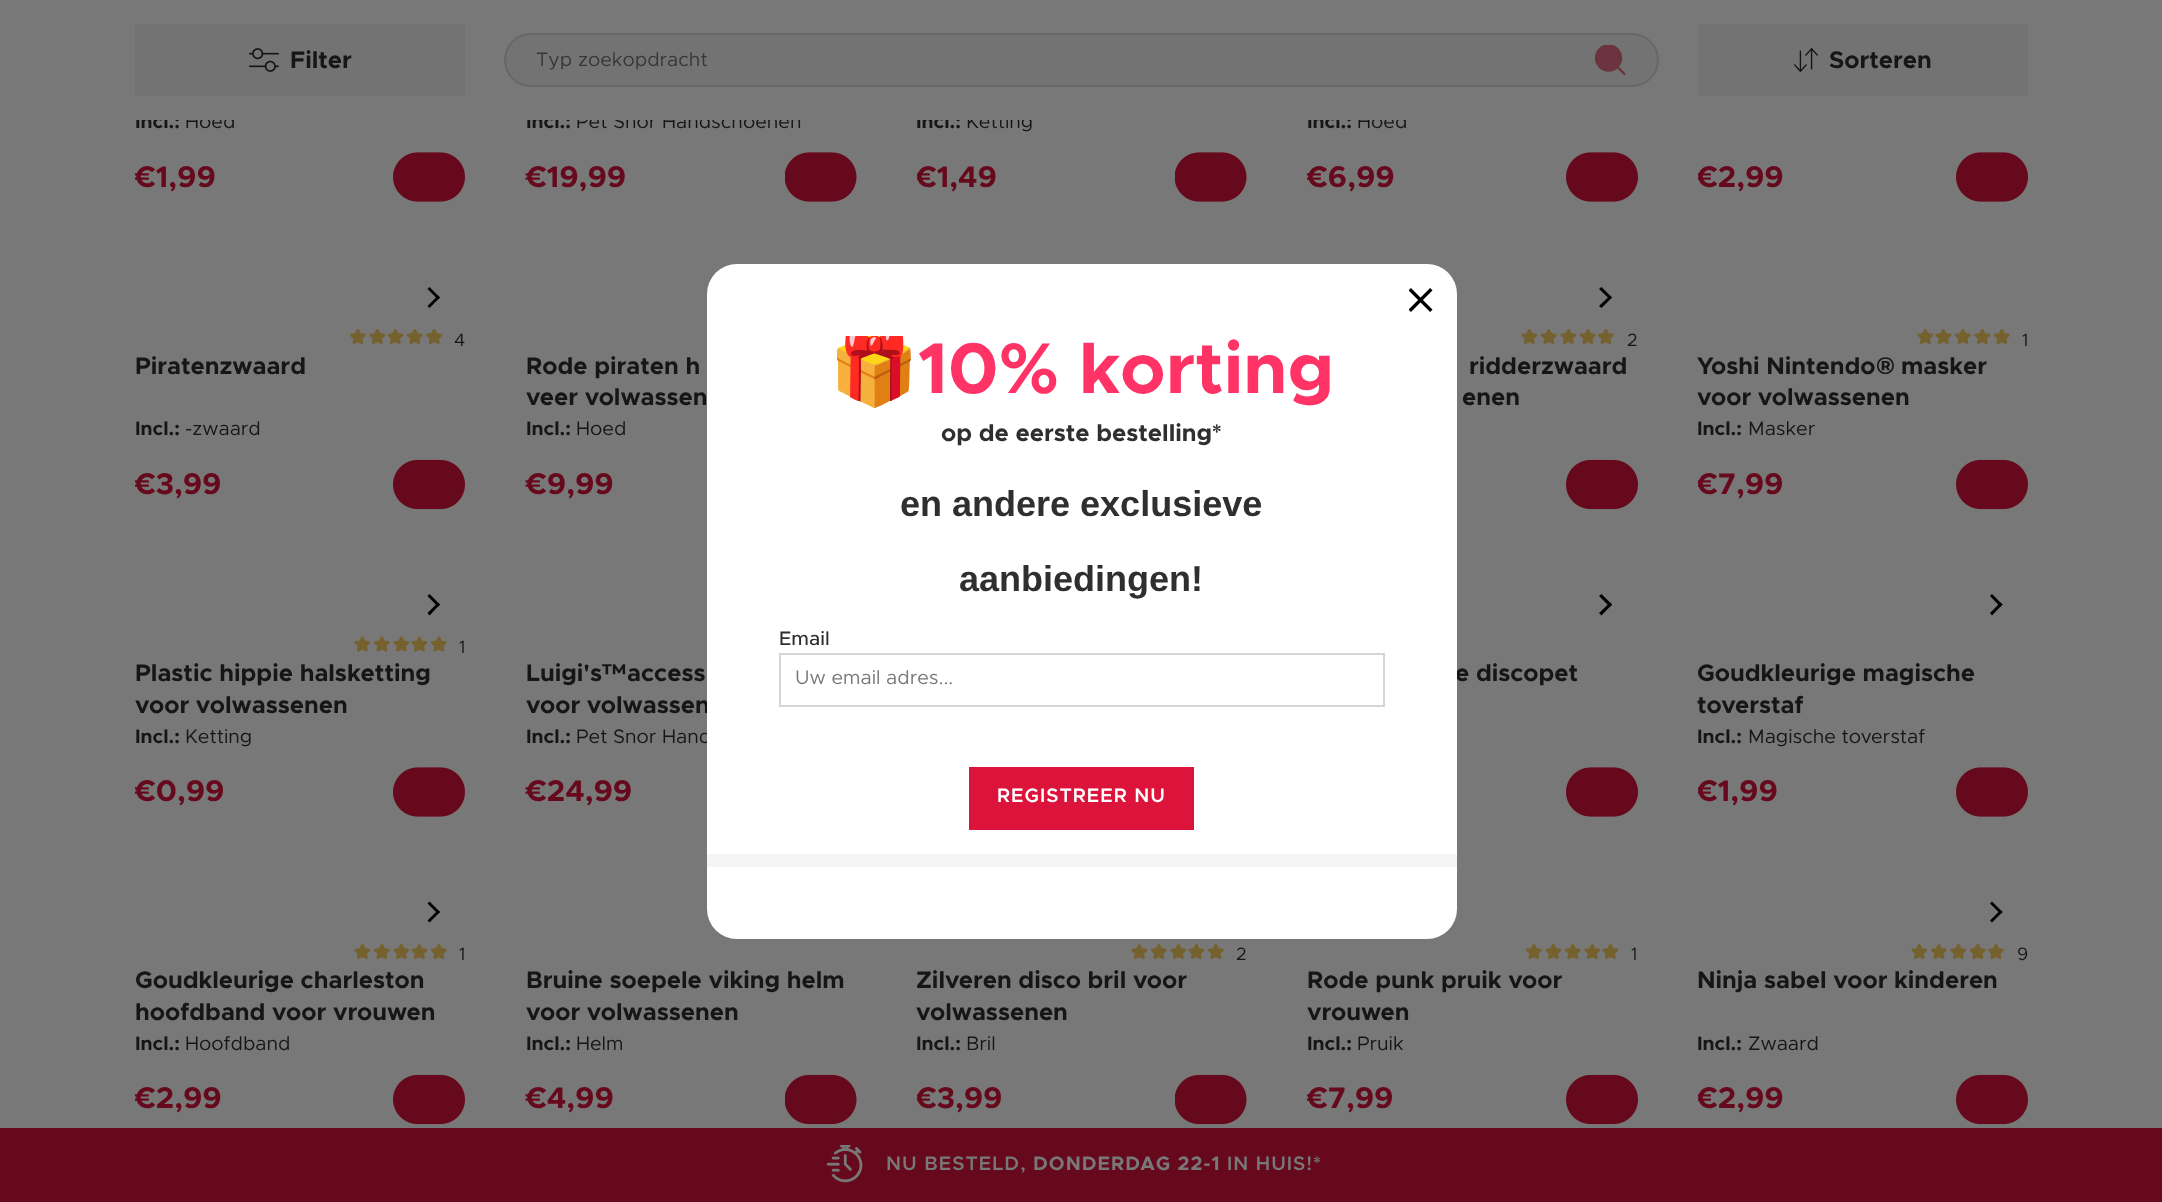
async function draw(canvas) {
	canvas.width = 2162;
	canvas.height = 1202;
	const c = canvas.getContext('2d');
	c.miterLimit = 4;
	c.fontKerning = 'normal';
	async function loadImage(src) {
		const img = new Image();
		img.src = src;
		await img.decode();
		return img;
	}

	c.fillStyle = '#787878';
	c.fillRect(0, 0, 2162, 1202);
	c.font = 'bold 19.5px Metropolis';
	c.fillStyle = '#161616';
	c.fillText('Incl.:', 135, 128);
	c.font = '19.5px Metropolis';
	c.fillText('Hoed', 185, 128);
	c.font = 'bold 19.5px Metropolis';
	c.fillText('Incl.:', 526, 128);
	c.font = '19.5px Metropolis';
	c.fillText('Pet Snor Handschoenen', 576, 128);
	c.font = 'bold 19.5px Metropolis';
	c.fillText('Incl.:', 916, 128);
	c.font = '19.5px Metropolis';
	c.fillText('Ketting', 966, 128);
	c.font = 'bold 19.5px Metropolis';
	c.fillText('Incl.:', 1307, 128);
	c.font = '19.5px Metropolis';
	c.fillText('Hoed', 1357, 128);
	c.fillStyle = '#787878';
	c.fillRect(136, 114, 1270, 6);
	c.fillStyle = '#737373';
	c.fillRect(135, 24, 330, 72);
	c.drawImage(await loadImage('img1.png'), 249, 48, 30, 24);
	c.font = 'bold 24px Metropolis';
	c.fillStyle = '#161616';
	c.fillText('Filter', 290, 68);
	c.fillStyle = '#737373';
	c.beginPath();
	c.roundRect(505, 34, 1153, 52, 26);
	c.fill();
	c.strokeStyle = '#676767';
	c.lineWidth = 2;
	c.stroke();
	c.font = '19.5px Metropolis';
	c.fillStyle = '#373737';
	c.fillText('Typ zoekopdracht', 536, 66);
	c.fillStyle = '#6c343f';
	c.beginPath();
	c.arc(1608.5, 58, 12.5, 0, 2 * Math.PI);
	c.fill();
	c.save();
	c.beginPath();
	c.rect(1595, 45, 34, 34);
	c.clip();
	c.beginPath();
	c.arc(1608.5, 58, 12.5, 0, 2 * Math.PI);
	c.strokeStyle = '#6c343f';
	c.lineWidth = 2.4;
	c.stroke();
	c.restore();
	c.beginPath();
	c.moveTo(1624.5, 74);
	c.lineTo(1617.5, 67);
	c.strokeStyle = '#6c343f';
	c.lineWidth = 2.4;
	c.lineCap = 'round';
	c.lineJoin = 'round';
	c.stroke();
	c.fillStyle = '#737373';
	c.fillRect(1698, 24, 330, 72);
	c.drawImage(await loadImage('img2.png'), 1794, 48, 24, 24);
	c.font = 'bold 24px Metropolis';
	c.fillStyle = '#161616';
	c.fillText('Sorteren', 1829, 68);
	c.save();
	c.beginPath();
	c.rect(135, 0, 330, 215);
	c.clip();
	c.font = 'bold 30px Metropolis';
	c.fillStyle = '#67091c';
	c.fillText('€1,99', 135, 187);
	c.restore();
	c.drawImage(await loadImage('img3.png'), 393, 152, 72, 50);
	c.font = 'bold 30px Metropolis';
	c.fillStyle = '#67091c';
	c.fillText('€19,99', 526, 187);
	c.drawImage(await loadImage('img4.png'), 785, 152, 72, 50);
	c.save();
	c.beginPath();
	c.rect(917, 0, 330, 215);
	c.clip();
	c.fillText('€1,49', 916, 187);
	c.restore();
	c.drawImage(await loadImage('img4.png'), 1175, 152, 72, 50);
	c.save();
	c.beginPath();
	c.rect(1307, 0, 331, 215);
	c.clip();
	c.fillText('€6,99', 1307, 187);
	c.restore();
	c.drawImage(await loadImage('img3.png'), 1566, 152, 72, 50);
	c.save();
	c.beginPath();
	c.rect(1698, 0, 330, 215);
	c.clip();
	c.fillText('€2,99', 1697, 187);
	c.restore();
	c.drawImage(await loadImage('img3.png'), 1956, 152, 72, 50);
	c.fillStyle = '#000';
	c.beginPath();
	c.moveTo(429.5, 287);
	c.lineTo(440, 297.5);
	c.lineTo(438, 299.5);
	c.lineTo(427.5, 289);
	c.closePath();
	c.fill();
	c.beginPath();
	c.moveTo(438, 295.5);
	c.lineTo(440, 297.5);
	c.lineTo(429.5, 308);
	c.lineTo(427.5, 306);
	c.closePath();
	c.fill();
	c.drawImage(await loadImage('img5.png'), 350, 329, 16, 15);
	c.drawImage(await loadImage('img6.png'), 369, 329, 17, 15);
	c.drawImage(await loadImage('img6.png'), 387, 329, 17, 15);
	c.drawImage(await loadImage('img5.png'), 407, 329, 16, 15);
	c.drawImage(await loadImage('img7.png'), 426, 329, 17, 16);
	c.font = '18px Metropolis';
	c.fillStyle = '#161616';
	c.fillText('4', 454, 346);
	c.font = 'bold 24px Metropolis';
	c.fillText('Piratenzwaard', 135, 374);
	c.font = 'bold 19.5px Metropolis';
	c.fillText('Incl.:', 135, 435);
	c.font = '19.5px Metropolis';
	c.fillText('-zwaard', 185, 435);
	c.save();
	c.beginPath();
	c.rect(135, 275, 330, 247);
	c.clip();
	c.font = 'bold 30px Metropolis';
	c.fillStyle = '#67091c';
	c.fillText('€3,99', 135, 494);
	c.restore();
	c.drawImage(await loadImage('img8.png'), 393, 459, 72, 51);
	c.font = 'bold 24px Metropolis';
	c.fillText('Rode piraten h', 526, 374);
	c.fillText('veer volwassen', 526, 405);
	c.font = 'bold 19.5px Metropolis';
	c.fillText('Incl.:', 526, 435);
	c.font = '19.5px Metropolis';
	c.fillText('Hoed', 576, 435);
	c.font = 'bold 30px Metropolis';
	c.fillStyle = '#67091c';
	c.fillText('€9,99', 526, 494);
	c.fillStyle = '#000';
	c.beginPath();
	c.moveTo(1601.5, 287);
	c.lineTo(1612, 297.5);
	c.lineTo(1610, 299.5);
	c.lineTo(1599, 289);
	c.closePath();
	c.fill();
	c.beginPath();
	c.moveTo(1610, 295.5);
	c.lineTo(1612, 297.5);
	c.lineTo(1601.5, 308);
	c.lineTo(1599, 306);
	c.closePath();
	c.fill();
	c.drawImage(await loadImage('img6.png'), 1521, 329, 17, 15);
	c.drawImage(await loadImage('img5.png'), 1541, 329, 16, 15);
	c.drawImage(await loadImage('img6.png'), 1560, 329, 17, 15);
	c.drawImage(await loadImage('img5.png'), 1580, 329, 16, 15);
	c.drawImage(await loadImage('img5.png'), 1598, 329, 16, 15);
	c.font = '18px Metropolis';
	c.fillStyle = '#161616';
	c.fillText('2', 1627, 346);
	c.font = 'bold 24px Metropolis';
	c.fillText('ridderzwaard', 1469, 374);
	c.fillText('enen', 1462, 405);
	c.drawImage(await loadImage('img8.png'), 1566, 459, 72, 51);
	c.drawImage(await loadImage('img6.png'), 1917, 329, 17, 15);
	c.drawImage(await loadImage('img6.png'), 1935, 329, 17, 15);
	c.drawImage(await loadImage('img5.png'), 1955, 329, 16, 15);
	c.drawImage(await loadImage('img6.png'), 1974, 329, 17, 15);
	c.drawImage(await loadImage('img5.png'), 1994, 329, 16, 15);
	c.font = '18px Metropolis';
	c.fillText('1', 2022, 346);
	c.font = 'bold 24px Metropolis';
	c.fillText('Yoshi Nintendo', 1697, 374);
	c.font = 'bold 24px Montserrat';
	c.fillText('®', 1876, 374);
	c.font = 'bold 24px Metropolis';
	c.fillText('masker', 1901, 374);
	c.fillText('voor volwassenen', 1697, 405);
	c.font = 'bold 19.5px Metropolis';
	c.fillText('Incl.:', 1697, 435);
	c.font = '19.5px Metropolis';
	c.fillText('Masker', 1748, 435);
	c.save();
	c.beginPath();
	c.rect(1698, 275, 330, 247);
	c.clip();
	c.font = 'bold 30px Metropolis';
	c.fillStyle = '#67091c';
	c.fillText('€7,99', 1697, 494);
	c.restore();
	c.drawImage(await loadImage('img8.png'), 1956, 459, 72, 51);
	c.fillStyle = '#000';
	c.beginPath();
	c.moveTo(429.5, 594);
	c.lineTo(440, 604.5);
	c.lineTo(438, 607);
	c.lineTo(427.5, 596);
	c.closePath();
	c.fill();
	c.beginPath();
	c.moveTo(438, 602.5);
	c.lineTo(440, 604.5);
	c.lineTo(429.5, 615.5);
	c.lineTo(427.5, 613);
	c.closePath();
	c.fill();
	c.drawImage(await loadImage('img9.png'), 354, 636, 17, 16);
	c.drawImage(await loadImage('img10.png'), 374, 636, 16, 16);
	c.drawImage(await loadImage('img9.png'), 393, 636, 17, 16);
	c.drawImage(await loadImage('img9.png'), 411, 636, 17, 16);
	c.drawImage(await loadImage('img10.png'), 431, 636, 16, 16);
	c.font = '18px Metropolis';
	c.fillStyle = '#161616';
	c.fillText('1', 459, 653);
	c.font = 'bold 24px Metropolis';
	c.fillText('Plastic hippie halsketting', 135, 681);
	c.fillText('voor volwassenen', 135, 713);
	c.font = 'bold 19.5px Metropolis';
	c.fillText('Incl.:', 135, 743);
	c.font = '19.5px Metropolis';
	c.fillText('Ketting', 185, 743);
	c.save();
	c.beginPath();
	c.rect(135, 582, 330, 248);
	c.clip();
	c.font = 'bold 30px Metropolis';
	c.fillStyle = '#67091c';
	c.fillText('€0,99', 135, 801);
	c.restore();
	c.drawImage(await loadImage('img3.png'), 393, 767, 72, 50);
	c.font = 'bold 24px Metropolis';
	c.fillText('Luigi\'s', 526, 681);
	c.font = 'bold 24px Montserrat';
	c.fillText('™', 602, 681);
	c.font = 'bold 24px Metropolis';
	c.fillText('access', 627, 681);
	c.fillText('voor volwassen', 526, 713);
	c.font = 'bold 19.5px Metropolis';
	c.fillText('Incl.:', 526, 743);
	c.font = '19.5px Metropolis';
	c.fillText('Pet Snor Hand', 576, 743);
	c.font = 'bold 30px Metropolis';
	c.fillStyle = '#67091c';
	c.fillText('€24,99', 526, 801);
	c.fillStyle = '#000';
	c.beginPath();
	c.moveTo(1601.5, 594);
	c.lineTo(1612, 604.5);
	c.lineTo(1610, 607);
	c.lineTo(1599, 596);
	c.closePath();
	c.fill();
	c.beginPath();
	c.moveTo(1610, 602.5);
	c.lineTo(1612, 604.5);
	c.lineTo(1601.5, 615.5);
	c.lineTo(1599, 613);
	c.closePath();
	c.fill();
	c.font = 'bold 24px Metropolis';
	c.fillStyle = '#161616';
	c.fillText('e discopet', 1455, 681);
	c.drawImage(await loadImage('img3.png'), 1566, 767, 72, 50);
	c.fillStyle = '#000';
	c.beginPath();
	c.moveTo(1992, 594);
	c.lineTo(2002.5, 604.5);
	c.lineTo(2000.5, 607);
	c.lineTo(1990, 596);
	c.closePath();
	c.fill();
	c.beginPath();
	c.moveTo(2000.5, 602.5);
	c.lineTo(2002.5, 604.5);
	c.lineTo(1992, 615.5);
	c.lineTo(1990, 613);
	c.closePath();
	c.fill();
	c.fillStyle = '#161616';
	c.fillText('Goudkleurige magische', 1697, 681);
	c.fillText('toverstaf', 1697, 713);
	c.font = 'bold 19.5px Metropolis';
	c.fillText('Incl.:', 1697, 743);
	c.font = '19.5px Metropolis';
	c.fillText('Magische toverstaf', 1748, 743);
	c.save();
	c.beginPath();
	c.rect(1698, 582, 330, 248);
	c.clip();
	c.font = 'bold 30px Metropolis';
	c.fillStyle = '#67091c';
	c.fillText('€1,99', 1697, 801);
	c.restore();
	c.drawImage(await loadImage('img3.png'), 1956, 767, 72, 50);
	c.fillStyle = '#000';
	c.beginPath();
	c.moveTo(429.5, 901.5);
	c.lineTo(440, 912);
	c.lineTo(438, 914);
	c.lineTo(427.5, 903.5);
	c.closePath();
	c.fill();
	c.beginPath();
	c.moveTo(438, 910);
	c.lineTo(440, 912);
	c.lineTo(429.5, 922.5);
	c.lineTo(427.5, 920.5);
	c.closePath();
	c.fill();
	c.drawImage(await loadImage('img6.png'), 354, 944, 17, 15);
	c.drawImage(await loadImage('img5.png'), 374, 944, 16, 15);
	c.drawImage(await loadImage('img6.png'), 393, 944, 17, 15);
	c.drawImage(await loadImage('img6.png'), 411, 944, 17, 15);
	c.drawImage(await loadImage('img5.png'), 431, 944, 16, 15);
	c.font = '18px Metropolis';
	c.fillStyle = '#161616';
	c.fillText('1', 459, 960);
	c.font = 'bold 24px Metropolis';
	c.fillText('Goudkleurige charleston', 135, 988);
	c.fillText('hoofdband voor vrouwen', 135, 1020);
	c.font = 'bold 19.5px Metropolis';
	c.fillText('Incl.:', 135, 1050);
	c.font = '19.5px Metropolis';
	c.fillText('Hoofdband', 185, 1050);
	c.save();
	c.beginPath();
	c.rect(135, 890, 330, 247);
	c.clip();
	c.font = 'bold 30px Metropolis';
	c.fillStyle = '#67091c';
	c.fillText('€2,99', 135, 1108);
	c.restore();
	c.drawImage(await loadImage('img8.png'), 393, 1074, 72, 51);
	c.font = 'bold 24px Metropolis';
	c.fillText('Bruine soepele viking helm', 526, 988);
	c.fillText('voor volwassenen', 526, 1020);
	c.font = 'bold 19.5px Metropolis';
	c.fillText('Incl.:', 526, 1050);
	c.font = '19.5px Metropolis';
	c.fillText('Helm', 576, 1050);
	c.font = 'bold 30px Metropolis';
	c.fillStyle = '#67091c';
	c.fillText('€4,99', 526, 1108);
	c.drawImage(await loadImage('img11.png'), 785, 1074, 72, 51);
	c.drawImage(await loadImage('img6.png'), 1131, 944, 17, 15);
	c.drawImage(await loadImage('img5.png'), 1151, 944, 16, 15);
	c.drawImage(await loadImage('img6.png'), 1170, 944, 17, 15);
	c.drawImage(await loadImage('img6.png'), 1188, 944, 17, 15);
	c.drawImage(await loadImage('img5.png'), 1208, 944, 16, 15);
	c.font = '18px Metropolis';
	c.fillStyle = '#161616';
	c.fillText('2', 1236, 960);
	c.font = 'bold 24px Metropolis';
	c.fillText('Zilveren disco bril voor', 916, 988);
	c.fillText('volwassenen', 916, 1020);
	c.font = 'bold 19.5px Metropolis';
	c.fillText('Incl.:', 916, 1050);
	c.font = '19.5px Metropolis';
	c.fillText('Bril', 966, 1050);
	c.save();
	c.beginPath();
	c.rect(917, 890, 330, 247);
	c.clip();
	c.font = 'bold 30px Metropolis';
	c.fillStyle = '#67091c';
	c.fillText('€3,99', 916, 1108);
	c.restore();
	c.drawImage(await loadImage('img11.png'), 1175, 1074, 72, 51);
	c.drawImage(await loadImage('img5.png'), 1526, 944, 16, 15);
	c.drawImage(await loadImage('img6.png'), 1545, 944, 17, 15);
	c.drawImage(await loadImage('img5.png'), 1565, 944, 16, 15);
	c.drawImage(await loadImage('img6.png'), 1584, 944, 17, 15);
	c.drawImage(await loadImage('img6.png'), 1602, 944, 17, 15);
	c.font = '18px Metropolis';
	c.fillText('1', 1631, 960);
	c.font = 'bold 24px Metropolis';
	c.fillText('Rode punk pruik voor', 1307, 988);
	c.fillText('vrouwen', 1307, 1020);
	c.font = 'bold 19.5px Metropolis';
	c.fillText('Incl.:', 1307, 1050);
	c.font = '19.5px Metropolis';
	c.fillText('Pruik', 1357, 1050);
	c.save();
	c.beginPath();
	c.rect(1307, 890, 331, 247);
	c.clip();
	c.font = 'bold 30px Metropolis';
	c.fillStyle = '#67091c';
	c.fillText('€7,99', 1307, 1108);
	c.restore();
	c.drawImage(await loadImage('img8.png'), 1566, 1074, 72, 51);
	c.fillStyle = '#000';
	c.beginPath();
	c.moveTo(1992, 901.5);
	c.lineTo(2002.5, 912);
	c.lineTo(2000.5, 914);
	c.lineTo(1990, 903.5);
	c.closePath();
	c.fill();
	c.beginPath();
	c.moveTo(2000.5, 910);
	c.lineTo(2002.5, 912);
	c.lineTo(1992, 922.5);
	c.lineTo(1990, 920.5);
	c.closePath();
	c.fill();
	c.drawImage(await loadImage('img6.png'), 1911, 944, 17, 15);
	c.drawImage(await loadImage('img5.png'), 1931, 944, 16, 15);
	c.drawImage(await loadImage('img6.png'), 1950, 944, 17, 15);
	c.drawImage(await loadImage('img12.png'), 1970, 944, 16, 16);
	c.drawImage(await loadImage('img5.png'), 1988, 944, 16, 15);
	c.font = '18px Metropolis';
	c.fillStyle = '#161616';
	c.fillText('9', 2017, 960);
	c.font = 'bold 24px Metropolis';
	c.fillText('Ninja sabel voor kinderen', 1697, 988);
	c.font = 'bold 19.5px Metropolis';
	c.fillText('Incl.:', 1697, 1050);
	c.font = '19.5px Metropolis';
	c.fillText('Zwaard', 1748, 1050);
	c.save();
	c.beginPath();
	c.rect(1698, 890, 330, 247);
	c.clip();
	c.font = 'bold 30px Metropolis';
	c.fillStyle = '#67091c';
	c.fillText('€2,99', 1697, 1108);
	c.restore();
	c.drawImage(await loadImage('img8.png'), 1956, 1074, 72, 51);
	c.fillStyle = '#67091c';
	c.fillRect(0, 1128, 2162, 74);
	c.drawImage(await loadImage('img13.png'), 827, 1145, 36, 38);
	c.letterSpacing = '1px';
	c.font = '600 19.5px Metropolis';
	c.fillStyle = '#787878';
	c.fillText('NU BESTELD,', 886, 1170);
	c.font = 'bold 19.5px Metropolis';
	c.fillText('DONDERDAG 22-1', 1033, 1170);
	c.font = '600 19.5px Metropolis';
	c.fillText('IN HUIS!*', 1227, 1170);
	c.fillStyle = '#fff';
	c.beginPath();
	c.roundRect(707, 264, 750, 675, 30);
	c.fill();
	c.drawImage(await loadImage('img14.png'), 1409, 288, 24, 24);
	c.save();
	c.beginPath();
	c.rect(707, 336, 750, 531);
	c.clip();
	c.letterSpacing = '0px';
	c.font = 'bold 72px Noto Color Emoji';
	c.fillStyle = '#f36';
	c.fillText('🎁', 829, 393);
	c.restore();
	c.letterSpacing = '0px';
	c.font = 'bold 72px Metropolis';
	c.fillStyle = '#f36';
	c.fillText('10% korting', 918, 393);
	c.font = 'bold 24px Metropolis';
	c.fillStyle = '#2f2f2f';
	c.fillText('op de eerste bestelling*', 941, 441);
	c.font = 'bold 36px Liberation Sans';
	c.fillText('en andere exclusieve', 900, 516);
	c.fillText('aanbiedingen!', 959, 591);
	c.font = '500 19.5px Metropolis';
	c.fillText('Email', 779, 645);
	c.strokeStyle = '#d5d5d5';
	c.lineWidth = 2;
	c.lineJoin = 'miter';
	c.strokeRect(780, 654, 604, 52);
	c.font = '19.5px Metropolis';
	c.fillStyle = '#787878';
	c.fillText('Uw email adres...', 795, 684);
	c.fillStyle = '#dc143c';
	c.fillRect(969, 767, 225, 63);
	c.letterSpacing = '1px';
	c.font = '600 19.5px Metropolis';
	c.fillStyle = '#fff';
	c.fillText('REGISTREER NU', 997, 802);
	c.fillStyle = '#f5f5f5';
	c.fillRect(707, 854, 750, 13);
}

draw(document.querySelector('canvas'));
